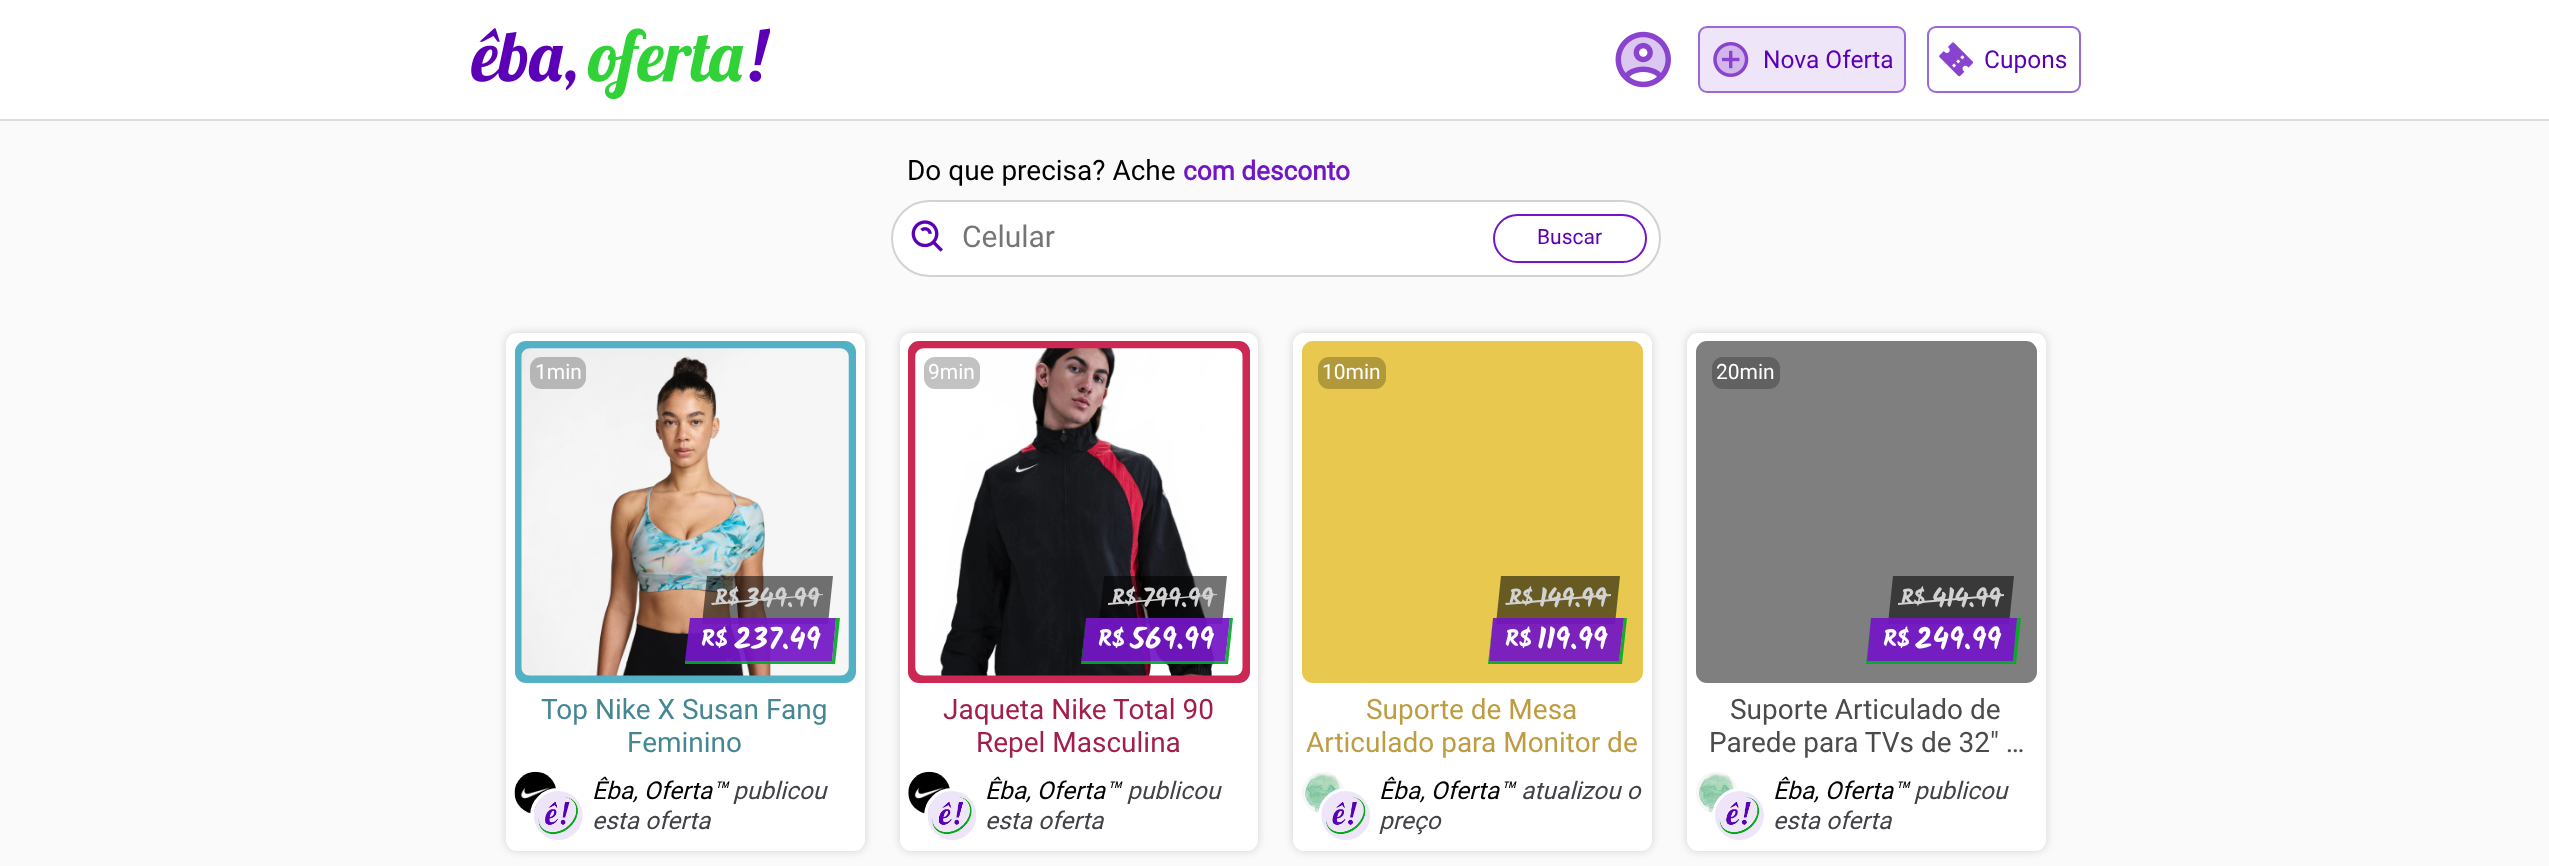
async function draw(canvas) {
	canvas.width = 2549;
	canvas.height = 866;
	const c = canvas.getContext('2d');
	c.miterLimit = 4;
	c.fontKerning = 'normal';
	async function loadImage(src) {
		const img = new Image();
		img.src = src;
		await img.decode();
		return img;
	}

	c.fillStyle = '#fff';
	c.fillRect(0, 0, 2549, 866);
	c.fillStyle = '#ddd';
	c.fillRect(0, 119, 2549, 2);
	c.drawImage(await loadImage('img1.png'), 471, 28, 299, 72);
	c.drawImage(await loadImage('img2.png'), 1615, 31, 56, 57);
	c.fillStyle = '#efe5f8';
	c.beginPath();
	c.roundRect(1699, 27, 206, 65, 8);
	c.fill();
	c.strokeStyle = '#9e67d7';
	c.lineWidth = 2;
	c.stroke();
	c.drawImage(await loadImage('img3.png'), 1713, 42, 36, 35);
	c.font = '24.5px Roboto';
	c.fillStyle = '#5b00b7';
	c.fillText('Nova Oferta', 1763, 68);
	c.beginPath();
	c.roundRect(1928, 27, 152, 65, 8);
	c.stroke();
	c.drawImage(await loadImage('img4.png'), 1939, 42, 34, 35);
	c.fillText('Cupons', 1984, 68);
	c.fillStyle = '#fafafa';
	c.fillRect(0, 121, 2549, 745);
	c.font = '28px Roboto';
	c.fillStyle = '#000';
	c.fillText('Do que precisa? Ache', 907, 180);
	c.font = 'bold 26.25px Roboto';
	c.fillStyle = '#7316c5';
	c.fillText('com desconto', 1183, 180);
	c.fillStyle = '#fff';
	c.beginPath();
	c.roundRect(892, 201, 768, 75, 37.5);
	c.fill();
	c.strokeStyle = '#d2d2d2';
	c.stroke();
	c.drawImage(await loadImage('img5.png'), 911, 220, 32, 32);
	c.font = '30px Roboto';
	c.fillStyle = '#757575';
	c.fillText('Celular', 962, 247);
	c.beginPath();
	c.roundRect(1494, 215, 152, 47, 23.5);
	c.strokeStyle = '#7316c5';
	c.stroke();
	c.font = '21px Roboto';
	c.fillStyle = '#5b00b7';
	c.fillText('Buscar', 1537, 244);
	c.fillStyle = '#d2d2d2';
	c.filter = 'blur(4.5px)';
	c.beginPath();
	c.roundRect(506, 333, 359, 518, 11);
	c.fill();
	c.filter = 'none';
	c.fillStyle = '#fff';
	c.beginPath();
	c.roundRect(506, 333, 359, 518, 11);
	c.fill();
	c.fillStyle = '#52b1c4';
	c.beginPath();
	c.roundRect(518.5, 344.5, 334, 335, 7.5);
	c.fill();
	c.strokeStyle = '#52b1c4';
	c.lineWidth = 7;
	c.stroke();
	c.drawImage(await loadImage('img6.png'), 521, 348, 328, 328);
	c.fillStyle = '#0000008c';
	c.beginPath();
	c.moveTo(707, 576);
	c.lineTo(833, 576);
	c.lineTo(828, 624);
	c.lineTo(702, 624);
	c.closePath();
	c.fill();
	c.fillStyle = '#d2d2d2';
	c.beginPath();
	c.moveTo(711, 603);
	c.lineTo(823, 594);
	c.lineTo(823, 595);
	c.lineTo(712, 605);
	c.closePath();
	c.fill();
	c.fillStyle = '#00ac24ed';
	c.beginPath();
	c.moveTo(685, 661);
	c.lineTo(685, 664);
	c.lineTo(835, 664);
	c.lineTo(840, 618);
	c.lineTo(836, 618);
	c.lineTo(832, 661);
	c.closePath();
	c.fill();
	c.fillStyle = '#7316c5ed';
	c.beginPath();
	c.moveTo(690, 618);
	c.lineTo(836, 618);
	c.lineTo(832, 661);
	c.lineTo(685, 661);
	c.closePath();
	c.fill();
	c.beginPath();
	c.roundRect(518.5, 345.5, 333, 333, 11.5);
	c.lineWidth = 5;
	c.stroke();
	c.fillStyle = '#0000003d';
	c.beginPath();
	c.roundRect(530, 357, 56, 32, 11);
	c.fill();
	c.fillStyle = '#fff';
	c.fillText('1min', 535, 379);
	c.font = 'bold 21px Kalam';
	c.fillStyle = '#d2d2d2';
	c.fillText('R$', 715, 604);
	c.font = 'bold 26.25px Kalam';
	c.fillText('349.99', 745, 607);
	c.font = 'bold 23px Kalam';
	c.fillStyle = '#fff';
	c.fillText('R$', 701, 646);
	c.font = 'bold 30px Kalam';
	c.fillText('237.49', 734, 649);
	c.font = '28px Roboto';
	c.fillStyle = '#448792';
	c.fillText('Top Nike X Susan Fang', 541, 719);
	c.fillText('Feminino', 627, 752);
	c.drawImage(await loadImage('img7.png'), 514, 771, 43, 43);
	c.beginPath();
	c.arc(558, 816, 26, 0, 2 * Math.PI);
	c.strokeStyle = '#fff';
	c.lineWidth = 4;
	c.stroke();
	c.drawImage(await loadImage('img8.png'), 534, 791, 49, 49);
	c.font = 'italic 24.5px Roboto';
	c.fillStyle = '#000';
	c.fillText('Êba, Oferta™', 592, 799);
	c.fillStyle = '#414245';
	c.fillText('publicou', 733, 799);
	c.fillText('esta oferta', 592, 829);
	c.fillStyle = '#d2d2d2';
	c.filter = 'blur(4.5px)';
	c.beginPath();
	c.roundRect(900, 333, 358, 518, 11);
	c.fill();
	c.filter = 'none';
	c.fillStyle = '#fff';
	c.beginPath();
	c.roundRect(900, 333, 358, 518, 11);
	c.fill();
	c.fillStyle = '#cc2853';
	c.beginPath();
	c.roundRect(911.5, 344.5, 335, 335, 7.5);
	c.fill();
	c.strokeStyle = '#cc2853';
	c.lineWidth = 7;
	c.stroke();
	c.drawImage(await loadImage('img9.png'), 915, 348, 328, 328);
	c.fillStyle = '#0000008c';
	c.beginPath();
	c.moveTo(1104, 576);
	c.lineTo(1227, 576);
	c.lineTo(1222, 624);
	c.lineTo(1099, 624);
	c.closePath();
	c.fill();
	c.fillStyle = '#d2d2d2';
	c.beginPath();
	c.moveTo(1108, 603);
	c.lineTo(1217, 594);
	c.lineTo(1217, 595);
	c.lineTo(1108, 605);
	c.closePath();
	c.fill();
	c.fillStyle = '#00ac24ed';
	c.beginPath();
	c.moveTo(1086, 618);
	c.lineTo(1081, 664);
	c.lineTo(1228, 664);
	c.lineTo(1233, 618);
	c.lineTo(1230, 618);
	c.lineTo(1225, 661);
	c.lineTo(1082, 661);
	c.closePath();
	c.fill();
	c.fillStyle = '#7316c5ed';
	c.beginPath();
	c.moveTo(1086, 618);
	c.lineTo(1230, 618);
	c.lineTo(1225, 661);
	c.lineTo(1082, 661);
	c.closePath();
	c.fill();
	c.beginPath();
	c.roundRect(912.5, 345.5, 333, 333, 11.5);
	c.lineWidth = 5;
	c.stroke();
	c.fillStyle = '#c2c2c2';
	c.beginPath();
	c.roundRect(924, 357, 56, 32, 11);
	c.fill();
	c.font = '21px Roboto';
	c.fillStyle = '#fff';
	c.fillText('9min', 928, 379);
	c.font = 'bold 21px Kalam';
	c.fillStyle = '#d2d2d2';
	c.fillText('R$', 1112, 604);
	c.font = 'bold 26.25px Kalam';
	c.fillText('799.99', 1142, 607);
	c.font = 'bold 23px Kalam';
	c.fillStyle = '#fff';
	c.fillText('R$', 1098, 646);
	c.font = 'bold 30px Kalam';
	c.fillText('569.99', 1130, 649);
	c.font = '28px Roboto';
	c.fillStyle = '#a21f4b';
	c.fillText('Jaqueta Nike Total 90', 943, 719);
	c.fillText('Repel Masculina', 976, 752);
	c.drawImage(await loadImage('img10.png'), 908, 771, 42, 43);
	c.beginPath();
	c.arc(952, 816, 26, 0, 2 * Math.PI);
	c.strokeStyle = '#fff';
	c.lineWidth = 4;
	c.stroke();
	c.drawImage(await loadImage('img11.png'), 927, 791, 50, 49);
	c.font = 'italic 24.5px Roboto';
	c.fillStyle = '#000';
	c.fillText('Êba, Oferta™', 985, 799);
	c.fillStyle = '#414245';
	c.fillText('publicou', 1127, 799);
	c.fillText('esta oferta', 985, 829);
	c.fillStyle = '#d2d2d2';
	c.filter = 'blur(4.5px)';
	c.beginPath();
	c.roundRect(1293, 333, 359, 518, 11);
	c.fill();
	c.filter = 'none';
	c.fillStyle = '#fff';
	c.beginPath();
	c.roundRect(1293, 333, 359, 518, 11);
	c.fill();
	c.fillStyle = '#e8c84e';
	c.beginPath();
	c.roundRect(1305.5, 344.5, 334, 335, 7.5);
	c.fill();
	c.strokeStyle = '#e8c84e';
	c.lineWidth = 7;
	c.stroke();
	c.fillStyle = '#b0983b';
	c.beginPath();
	c.roundRect(1318, 357, 68, 32, 11);
	c.fill();
	c.font = '21px Roboto';
	c.fillStyle = '#fff';
	c.fillText('10min', 1322, 379);
	c.fillStyle = '#685a23';
	c.beginPath();
	c.moveTo(1501, 576);
	c.lineTo(1620, 576);
	c.lineTo(1615, 624);
	c.lineTo(1496, 624);
	c.closePath();
	c.fill();
	c.font = 'bold 21px Kalam';
	c.fillStyle = '#d2d2d2';
	c.fillText('R$', 1509, 604);
	c.font = 'bold 26.25px Kalam';
	c.fillText('149.99', 1539, 607);
	c.beginPath();
	c.moveTo(1505, 603);
	c.lineTo(1611, 594);
	c.lineTo(1611, 596);
	c.lineTo(1506, 605);
	c.closePath();
	c.fill();
	c.fillStyle = '#10ae27';
	c.beginPath();
	c.moveTo(1493, 618);
	c.lineTo(1488, 664);
	c.lineTo(1622, 664);
	c.lineTo(1627, 618);
	c.lineTo(1624, 618);
	c.lineTo(1619, 661);
	c.lineTo(1489, 661);
	c.closePath();
	c.fill();
	c.fillStyle = '#7316c5ed';
	c.beginPath();
	c.moveTo(1493, 618);
	c.lineTo(1624, 618);
	c.lineTo(1619, 661);
	c.lineTo(1489, 661);
	c.closePath();
	c.fill();
	c.font = 'bold 23px Kalam';
	c.fillStyle = '#fff';
	c.fillText('R$', 1505, 646);
	c.font = 'bold 30px Kalam';
	c.fillText('119.99', 1537, 649);
	c.font = '28px Roboto';
	c.fillStyle = '#bd9c42';
	c.fillText('Suporte de Mesa', 1366, 719);
	c.fillText('Articulado para Monitor de', 1306, 752);
	c.drawImage(await loadImage('img12.png'), 1302, 772, 42, 42);
	c.beginPath();
	c.arc(1346, 816, 26, 0, 2 * Math.PI);
	c.strokeStyle = '#fff';
	c.lineWidth = 4;
	c.stroke();
	c.drawImage(await loadImage('img13.png'), 1321, 791, 49, 49);
	c.font = 'italic 24.5px Roboto';
	c.fillStyle = '#000';
	c.fillText('Êba, Oferta™', 1379, 799);
	c.fillStyle = '#414245';
	c.fillText('atualizou o', 1521, 799);
	c.fillText('preço', 1379, 829);
	c.fillStyle = '#d2d2d2';
	c.filter = 'blur(4.5px)';
	c.beginPath();
	c.roundRect(1687, 333, 359, 518, 11);
	c.fill();
	c.filter = 'none';
	c.fillStyle = '#fff';
	c.beginPath();
	c.roundRect(1687, 333, 359, 518, 11);
	c.fill();
	c.fillStyle = '#7f7f7f';
	c.beginPath();
	c.roundRect(1699.5, 344.5, 334, 335, 7.5);
	c.fill();
	c.strokeStyle = '#7f7f7f';
	c.lineWidth = 7;
	c.stroke();
	c.fillStyle = '#616161';
	c.beginPath();
	c.roundRect(1712, 357, 68, 32, 11);
	c.fill();
	c.font = '21px Roboto';
	c.fillStyle = '#fff';
	c.fillText('20min', 1716, 379);
	c.fillStyle = '#393939';
	c.beginPath();
	c.moveTo(1893, 576);
	c.lineTo(2014, 576);
	c.lineTo(2009, 624);
	c.lineTo(1888, 624);
	c.closePath();
	c.fill();
	c.font = 'bold 21px Kalam';
	c.fillStyle = '#d2d2d2';
	c.fillText('R$', 1901, 604);
	c.font = 'bold 26.25px Kalam';
	c.fillText('414.99', 1932, 607);
	c.beginPath();
	c.moveTo(1898, 603);
	c.lineTo(2004, 594);
	c.lineTo(2004, 596);
	c.lineTo(1898, 605);
	c.closePath();
	c.fill();
	c.fillStyle = '#09a92a';
	c.beginPath();
	c.moveTo(1871, 618);
	c.lineTo(1866, 664);
	c.lineTo(2016, 664);
	c.lineTo(2021, 618);
	c.lineTo(2017, 618);
	c.lineTo(2013, 661);
	c.lineTo(1867, 661);
	c.closePath();
	c.fill();
	c.fillStyle = '#7316c5ed';
	c.beginPath();
	c.moveTo(1871, 618);
	c.lineTo(2017, 618);
	c.lineTo(2013, 661);
	c.lineTo(1867, 661);
	c.closePath();
	c.fill();
	c.font = 'bold 23px Kalam';
	c.fillStyle = '#fff';
	c.fillText('R$', 1883, 646);
	c.font = 'bold 30px Kalam';
	c.fillText('249.99', 1915, 649);
	c.font = '28px Roboto';
	c.fillStyle = '#4b4b4b';
	c.fillText('Suporte Articulado de', 1730, 719);
	c.fillText('Parede para TVs de 32" …', 1709, 752);
	c.drawImage(await loadImage('img14.png'), 1696, 772, 42, 42);
	c.beginPath();
	c.arc(1740, 816, 26, 0, 2 * Math.PI);
	c.strokeStyle = '#fff';
	c.lineWidth = 4;
	c.stroke();
	c.drawImage(await loadImage('img15.png'), 1715, 791, 49, 49);
	c.font = 'italic 24.5px Roboto';
	c.fillStyle = '#000';
	c.fillText('Êba, Oferta™', 1773, 799);
	c.fillStyle = '#414245';
	c.fillText('publicou', 1914, 799);
	c.fillText('esta oferta', 1773, 829);
}

draw(document.querySelector('canvas'));
